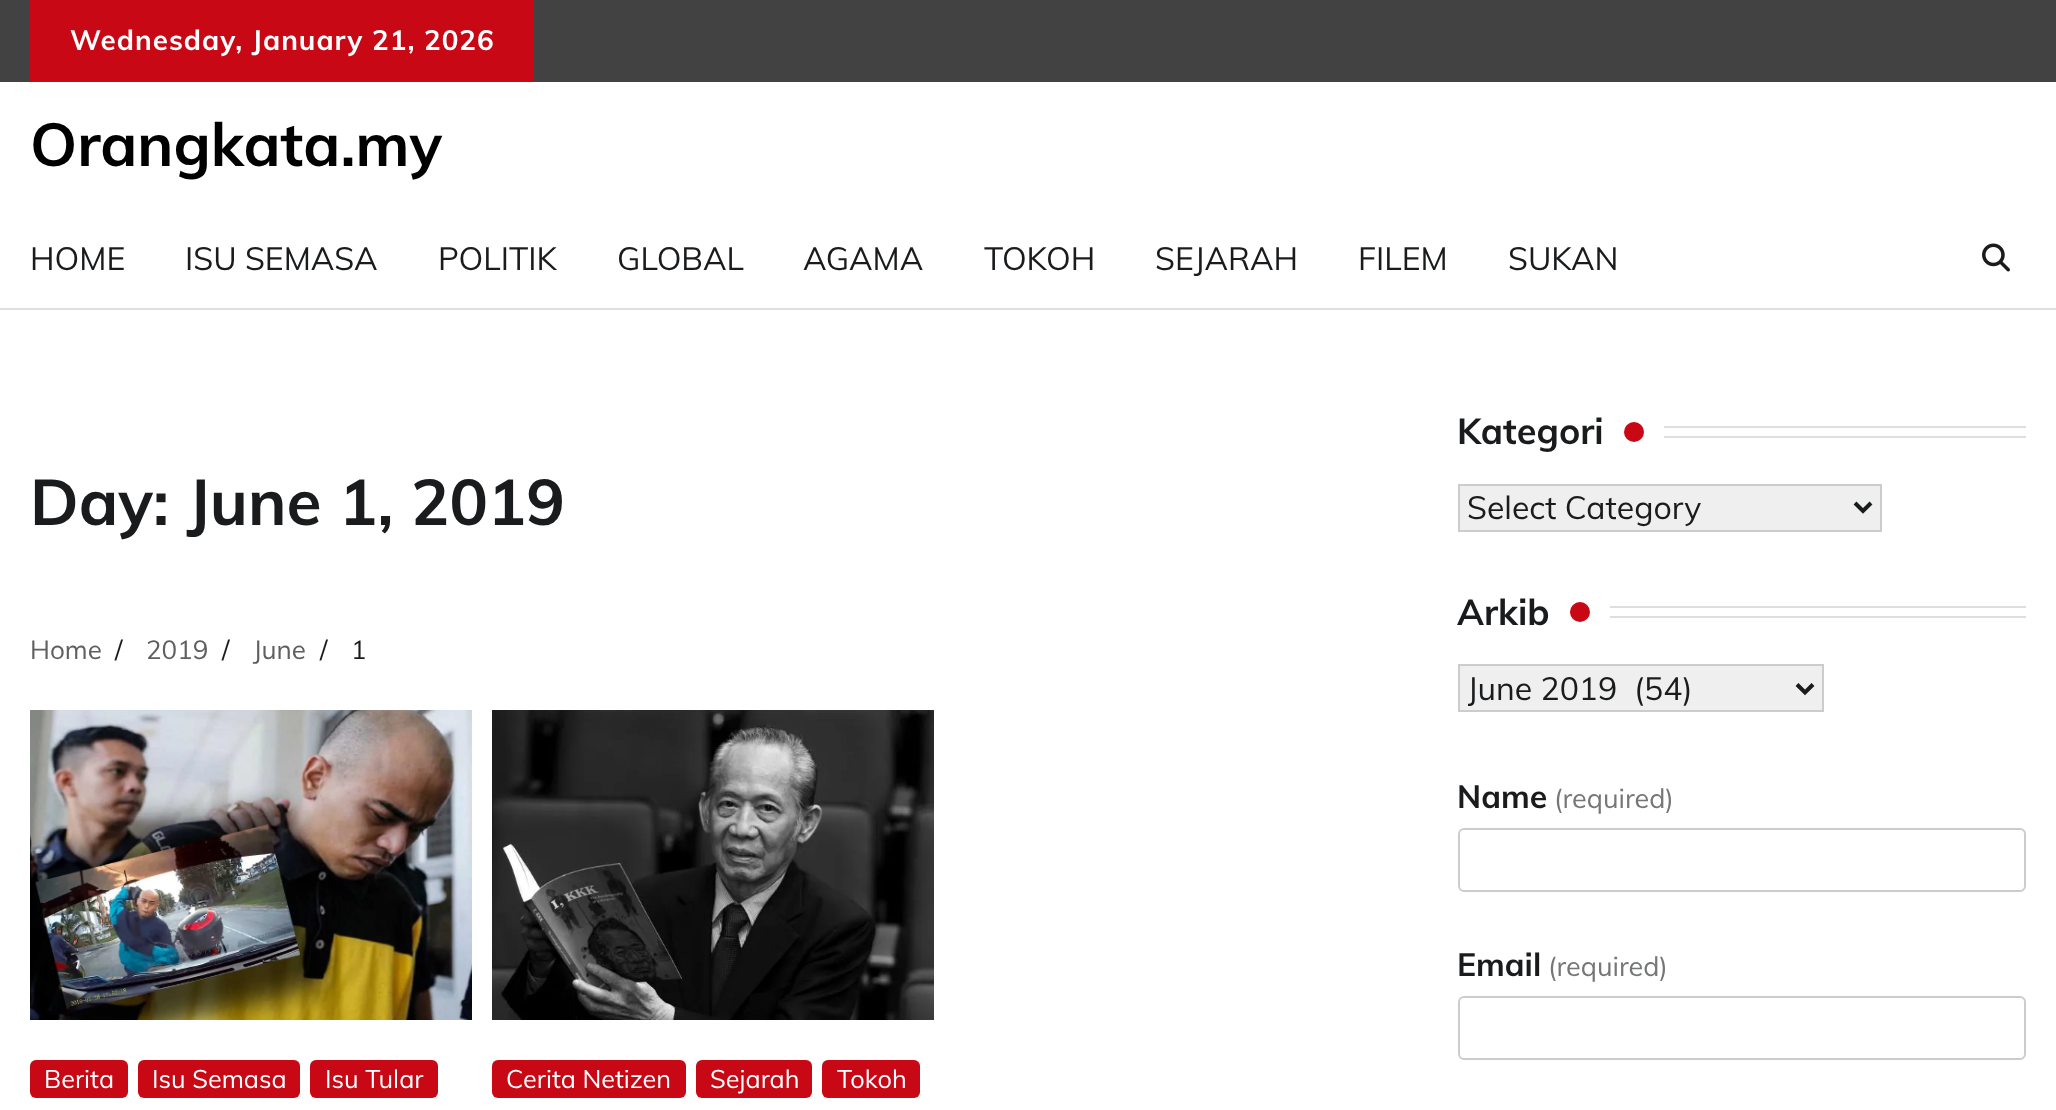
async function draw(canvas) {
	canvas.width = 2056;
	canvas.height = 1110;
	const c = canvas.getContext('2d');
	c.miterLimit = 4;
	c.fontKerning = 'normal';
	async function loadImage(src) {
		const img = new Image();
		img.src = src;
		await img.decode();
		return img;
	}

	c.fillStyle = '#fff';
	c.fillRect(0, 0, 2056, 1110);
	c.fillStyle = '#424242';
	c.fillRect(0, 0, 2056, 82);
	c.fillStyle = '#c80815';
	c.fillRect(30, 0, 504, 82);
	c.letterSpacing = '1px';
	c.font = 'bold 27.8px Muli';
	c.fillStyle = '#fff';
	c.fillText('Wednesday, January 21, 2026', 70, 50);
	c.letterSpacing = '0px';
	c.font = 'bold 60px Muli';
	c.fillStyle = '#000';
	c.fillText('Orangkata.my', 30, 166);
	c.fillStyle = '#dedede';
	c.fillRect(0, 308, 2056, 2);
	c.font = '32px Muli';
	c.fillStyle = '#191b1d';
	for (const [text, x, y] of [
		['HOME', 30, 270],
		['ISU SEMASA', 185, 270],
		['POLITIK', 438, 270],
		['GLOBAL', 617, 270],
		['AGAMA', 803, 270],
		['TOKOH', 984, 270],
		['SEJARAH', 1155, 270],
		['FILEM', 1358, 270],
		['SUKAN', 1508, 270],
	]) {
		c.fillText(text, x, y);
	}
	c.drawImage(await loadImage('img1.png'), 1982, 243, 28, 29);
	c.font = 'bold 64px Muli';
	c.fillText('Day: June 1, 2019', 30, 525);
	c.font = '26px Muli';
	c.fillStyle = '#5e5f61';
	c.fillText('Home', 30, 659);
	c.fillStyle = '#191b1d';
	c.fillText('/', 115, 659);
	c.fillStyle = '#5e5f61';
	c.fillText('2019', 146, 659);
	c.fillStyle = '#191b1d';
	c.fillText('/', 222, 659);
	c.fillStyle = '#5e5f61';
	c.fillText('June', 253, 659);
	c.fillStyle = '#191b1d';
	c.fillText('/', 320, 659);
	c.fillText('1', 351, 659);
	c.drawImage(await loadImage('img2.png'), 30, 710, 442, 310);
	c.fillStyle = '#c80815';
	c.beginPath();
	c.roundRect(30, 1060, 98, 38, 6);
	c.fill();
	c.font = '25.25px Muli';
	c.fillStyle = '#fff';
	c.fillText('Berita', 44, 1088);
	c.fillStyle = '#c80815';
	c.beginPath();
	c.roundRect(138, 1060, 162, 38, 6);
	c.fill();
	c.fillStyle = '#fff';
	c.fillText('Isu Semasa', 152, 1088);
	c.fillStyle = '#c80815';
	c.beginPath();
	c.roundRect(310, 1060, 128, 38, 6);
	c.fill();
	c.fillStyle = '#fff';
	c.fillText('Isu Tular', 325, 1088);
	c.drawImage(await loadImage('img3.png'), 492, 710, 442, 310);
	c.fillStyle = '#c80815';
	c.beginPath();
	c.roundRect(492, 1060, 194, 38, 6);
	c.fill();
	c.fillStyle = '#fff';
	c.fillText('Cerita Netizen', 506, 1088);
	c.fillStyle = '#c80815';
	c.beginPath();
	c.roundRect(696, 1060, 116, 38, 6);
	c.fill();
	c.fillStyle = '#fff';
	c.fillText('Sejarah', 710, 1088);
	c.fillStyle = '#c80815';
	c.beginPath();
	c.roundRect(822, 1060, 98, 38, 6);
	c.fill();
	c.fillStyle = '#fff';
	c.fillText('Tokoh', 837, 1088);
	c.font = 'bold 36px Muli';
	c.fillStyle = '#191b1d';
	c.fillText('Kategori', 1457, 444);
	c.fillStyle = '#c80815';
	c.beginPath();
	c.arc(1634, 432, 10, 0, 2 * Math.PI);
	c.fill();
	c.fillStyle = '#dedede';
	c.fillRect(1664, 426, 362, 2);
	c.fillRect(1664, 436, 362, 2);
	c.fillStyle = '#efefef';
	c.beginPath();
	c.rect(1459, 485, 422, 46);
	c.fill();
	c.strokeStyle = '#ccc';
	c.lineWidth = 2;
	c.stroke();
	c.beginPath();
	c.moveTo(1855, 503);
	c.lineTo(1863, 511);
	c.lineTo(1871, 503);
	c.strokeStyle = '#191b1d';
	c.lineWidth = 4;
	c.stroke();
	c.font = '32px Muli';
	c.fillStyle = '#191b1d';
	c.fillText('Select Category', 1467, 519);
	c.font = 'bold 36px Muli';
	c.fillText('Arkib', 1457, 625);
	c.fillStyle = '#c80815';
	c.beginPath();
	c.arc(1580, 612, 10, 0, 2 * Math.PI);
	c.fill();
	c.fillStyle = '#dedede';
	c.fillRect(1610, 606, 416, 2);
	c.fillRect(1610, 616, 416, 2);
	c.fillStyle = '#efefef';
	c.beginPath();
	c.rect(1459, 665, 364, 46);
	c.fill();
	c.strokeStyle = '#ccc';
	c.lineWidth = 2;
	c.stroke();
	c.beginPath();
	c.moveTo(1797, 684.5);
	c.lineTo(1805, 692.5);
	c.lineTo(1813, 684.5);
	c.strokeStyle = '#191b1d';
	c.lineWidth = 4;
	c.stroke();
	c.save();
	c.beginPath();
	c.rect(1468, 666, 322, 44);
	c.clip();
	c.font = '32px Muli';
	c.fillStyle = '#191b1d';
	c.fillText('June 2019  (54)', 1467, 700);
	c.restore();
	c.font = 'bold 32px Muli';
	c.fillStyle = '#191b1d';
	c.fillText('Name', 1457, 808);
	c.font = '27px Muli';
	c.fillStyle = '#757677';
	c.fillText('(required)', 1554, 808);
	c.beginPath();
	c.roundRect(1459, 829, 566, 62, 5);
	c.strokeStyle = '#ccc';
	c.lineWidth = 2;
	c.stroke();
	c.font = 'bold 32px Muli';
	c.fillStyle = '#191b1d';
	c.fillText('Email', 1457, 976);
	c.font = '27px Muli';
	c.fillStyle = '#757677';
	c.fillText('(required)', 1548, 976);
	c.beginPath();
	c.roundRect(1459, 997, 566, 62, 5);
	c.stroke();
}

draw(document.querySelector('canvas'));
